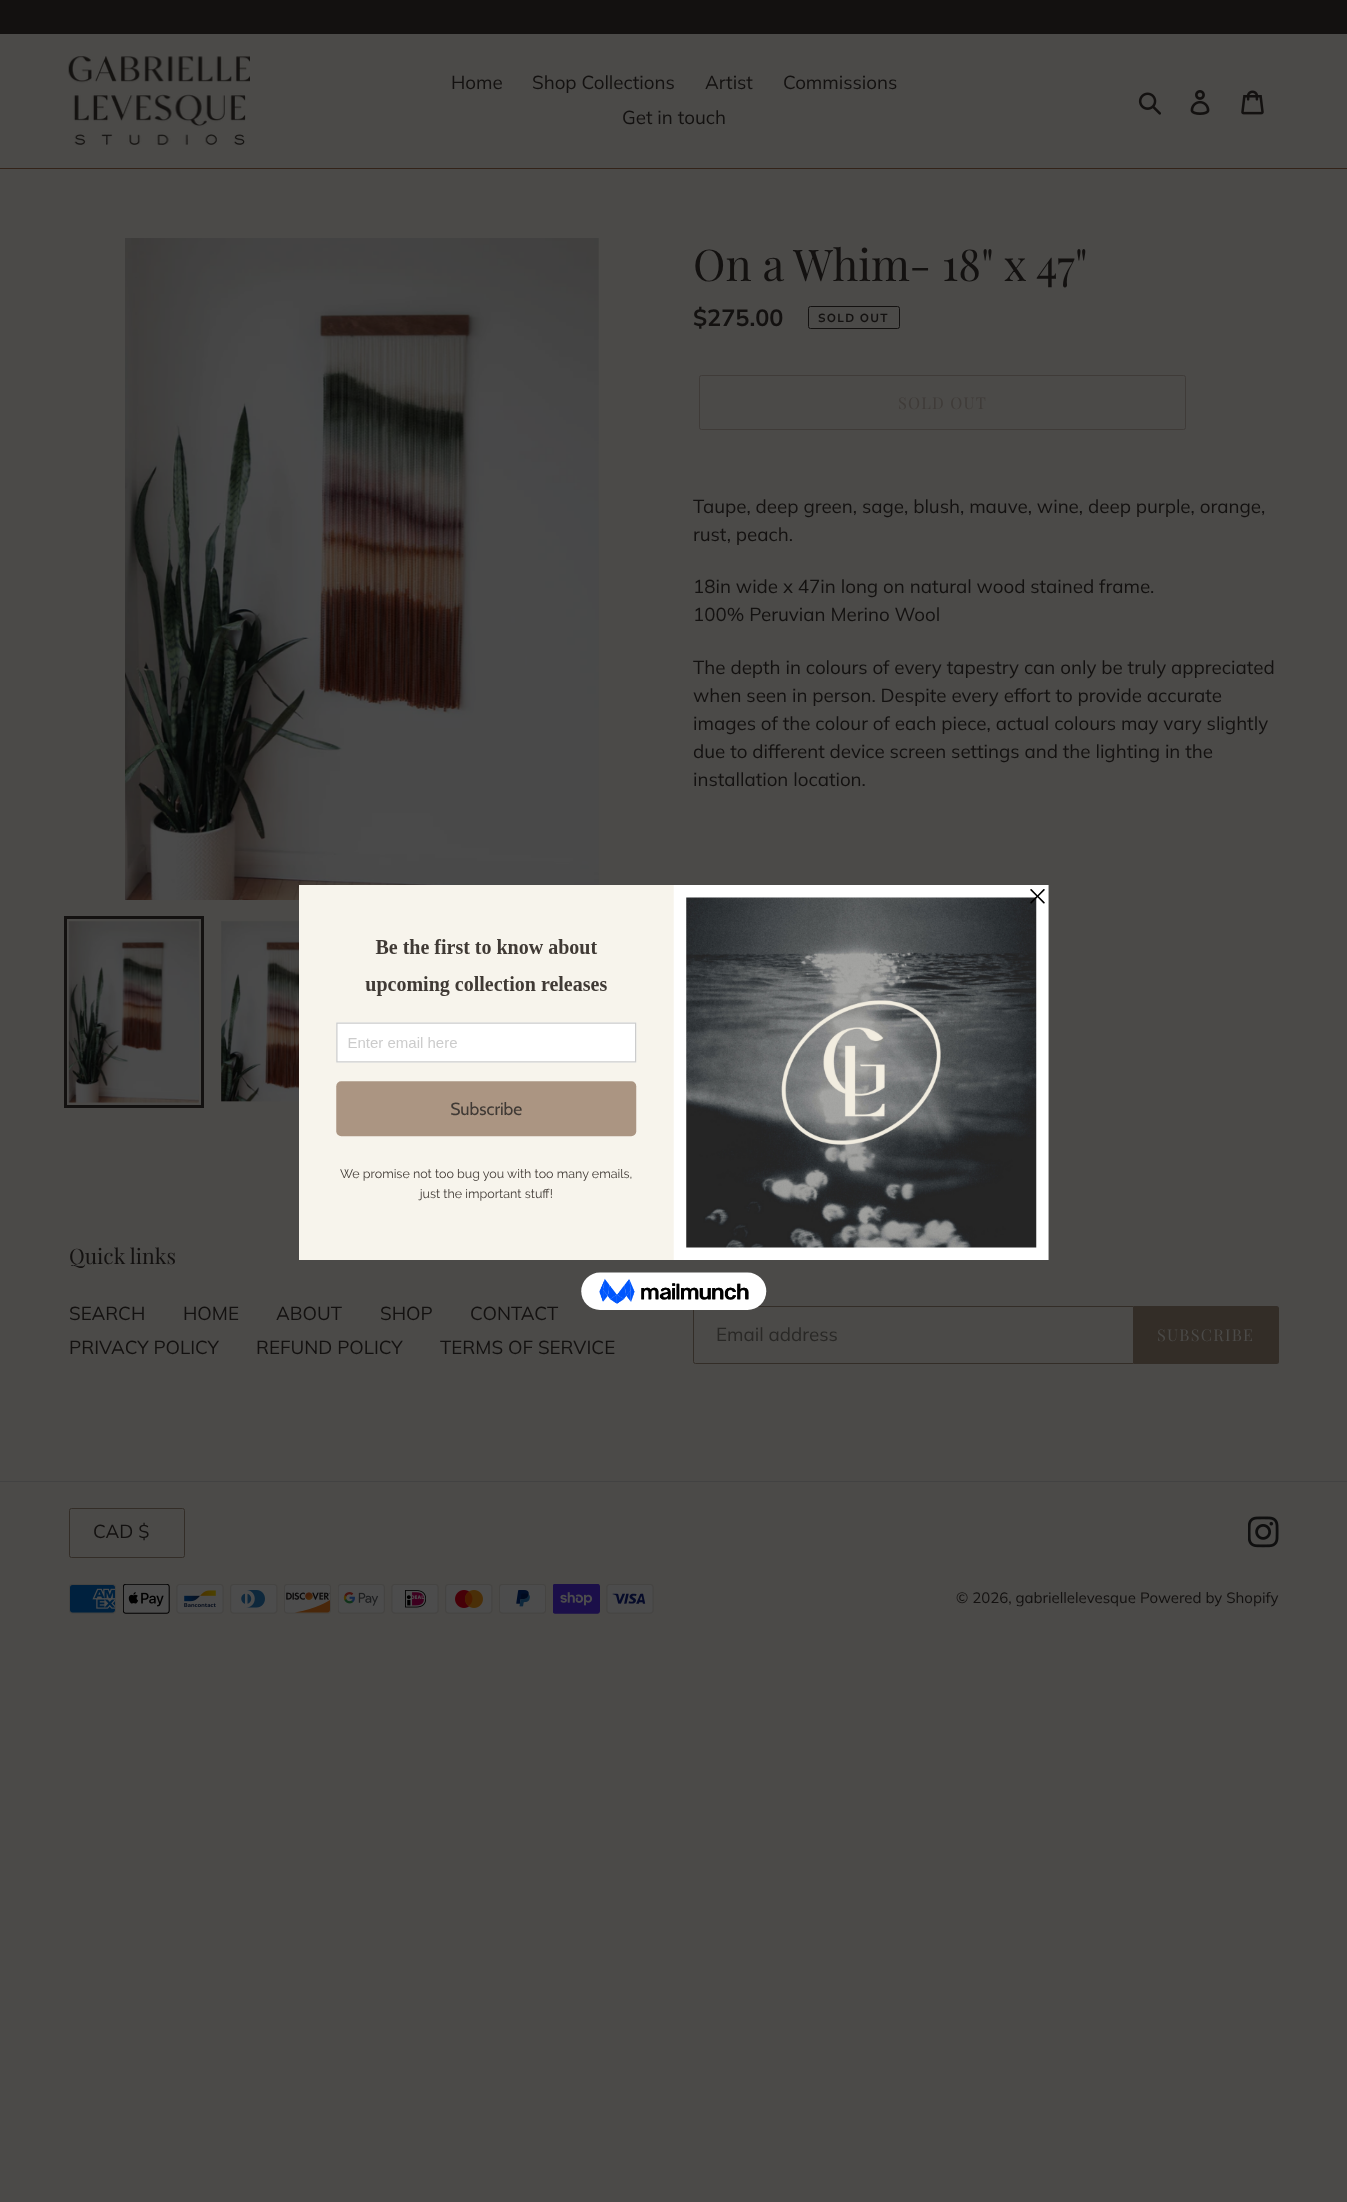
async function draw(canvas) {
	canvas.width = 1347;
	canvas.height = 2202;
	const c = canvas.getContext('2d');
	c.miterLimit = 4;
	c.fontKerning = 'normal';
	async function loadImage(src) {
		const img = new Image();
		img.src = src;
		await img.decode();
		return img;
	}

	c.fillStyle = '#4b4a48';
	c.fillRect(0, 0, 1347, 2202);
	c.fillStyle = '#131110';
	c.fillRect(0, 0, 1347, 34);
	c.fillStyle = '#332319';
	c.fillRect(0, 168, 1347, 1);
	c.drawImage(await loadImage('img1.png'), 68, 56, 182, 89);
	c.font = '18.75px Muli';
	c.fillStyle = '#131110';
	for (const [text, x, y] of [
		['Home', 451, 89],
		['Shop Collections', 532, 89],
		['Artist', 705, 89],
		['Commissions', 783, 89],
		['Get in touch', 622, 124],
	]) {
		c.fillText(text, x, y);
	}
	c.drawImage(await loadImage('img2.png'), 1138, 92, 23, 23);
	c.drawImage(await loadImage('img3.png'), 1190, 90, 20, 25);
	c.drawImage(await loadImage('img4.png'), 1241, 90, 23, 25);
	c.drawImage(await loadImage('img5.png'), 125, 238, 474, 662);
	c.strokeStyle = '#131110';
	c.lineWidth = 3;
	c.strokeRect(65.5, 917.5, 137, 189);
	c.drawImage(await loadImage('img6.png'), 68, 921, 131, 182);
	c.drawImage(await loadImage('img7.png'), 221, 921, 78, 181);
	c.font = '43.75px Playfair Display';
	c.fillText('On a Whim- 18" x 47"', 693, 281);
	c.font = 'bold 23.5px Muli';
	c.fillText('$275.00', 693, 326);
	c.beginPath();
	c.roundRect(808.5, 306.5, 91, 22, 2);
	c.lineWidth = 1;
	c.stroke();
	c.letterSpacing = '1.25px';
	c.font = 'bold 11.75px Muli';
	c.fillText('SOLD OUT', 818, 322);
	c.beginPath();
	c.roundRect(699.5, 375.5, 486, 54, 2);
	c.strokeStyle = '#3f3b38';
	c.stroke();
	c.font = '16.25px Playfair Display';
	c.fillStyle = '#3f3b38';
	c.fillText('SOLD OUT', 898, 409);
	c.letterSpacing = '0px';
	c.font = '18.75px Muli';
	c.fillStyle = '#131110';
	for (const [text, x, y] of [
		['Taupe, deep green, sage, blush, mauve, wine, deep purple, orange,', 693, 513],
		['rust, peach.', 693, 541],
		['18in wide x 47in long on natural wood stained frame.', 693, 593],
		['100% Peruvian Merino Wool', 693, 621],
		['The depth in colours of every tapestry can only be truly appreciated', 693, 674],
		['when seen in person. Despite every effort to provide accurate', 693, 702],
		['images of the colour of each piece, actual colours may vary slightly', 693, 730],
		['due to different device screen settings and the lighting in the', 693, 758],
		['installation location.', 693, 786],
	]) {
		c.fillText(text, x, y);
	}
	c.font = '21.25px Playfair Display';
	c.fillText('Quick links', 69, 1264);
	c.font = '18.75px Muli';
	for (const [text, x, y] of [
		['SEARCH', 69, 1320],
		['HOME', 183, 1320],
		['ABOUT', 276, 1320],
		['SHOP', 380, 1320],
		['CONTACT', 470, 1320],
		['PRIVACY POLICY', 69, 1354],
		['REFUND POLICY', 256, 1354],
		['TERMS OF SERVICE', 440, 1354],
	]) {
		c.fillText(text, x, y);
	}
	c.beginPath();
	c.roundRect(693.5, 1306.5, 440, 57, [2, 0, 0, 2]);
	c.strokeStyle = '#332d27';
	c.stroke();
	c.fillStyle = '#292826';
	c.fillText('Email address', 716, 1341);
	c.fillStyle = '#332d27';
	c.beginPath();
	c.roundRect(1134, 1306, 145, 58, [0, 2.5, 2.5, 0]);
	c.fill();
	c.letterSpacing = '1.25px';
	c.font = '16.25px Playfair Display';
	c.fillStyle = '#4b4a48';
	c.fillText('SUBSCRIBE', 1157, 1341);
	c.fillStyle = '#424242';
	c.fillRect(0, 1481, 1347, 1);
	c.beginPath();
	c.roundRect(69.5, 1508.5, 115, 49, 2);
	c.stroke();
	c.letterSpacing = '0px';
	c.font = '18.75px Muli';
	c.fillStyle = '#131110';
	c.fillText('CAD $', 93, 1538);
	c.drawImage(await loadImage('img8.png'), 1248, 1516, 31, 32);
	c.drawImage(await loadImage('img9.png'), 69, 1584, 47, 30);
	c.drawImage(await loadImage('img10.png'), 123, 1584, 47, 30);
	c.drawImage(await loadImage('img11.png'), 176, 1584, 48, 30);
	c.drawImage(await loadImage('img12.png'), 230, 1584, 48, 30);
	c.drawImage(await loadImage('img13.png'), 284, 1584, 47, 30);
	c.drawImage(await loadImage('img14.png'), 338, 1584, 47, 30);
	c.drawImage(await loadImage('img15.png'), 391, 1584, 48, 30);
	c.drawImage(await loadImage('img16.png'), 445, 1584, 48, 30);
	c.drawImage(await loadImage('img17.png'), 499, 1584, 47, 30);
	c.drawImage(await loadImage('img18.png'), 553, 1584, 47, 30);
	c.drawImage(await loadImage('img19.png'), 606, 1584, 48, 30);
	c.font = '15px Muli';
	c.fillText('© 2026, gabriellelevesque', 956, 1603);
	c.fillText('Powered by Shopify', 1140, 1603);
	c.drawImage(await loadImage('img20.png'), 299, 885, 750, 425);
}

draw(document.querySelector('canvas'));
